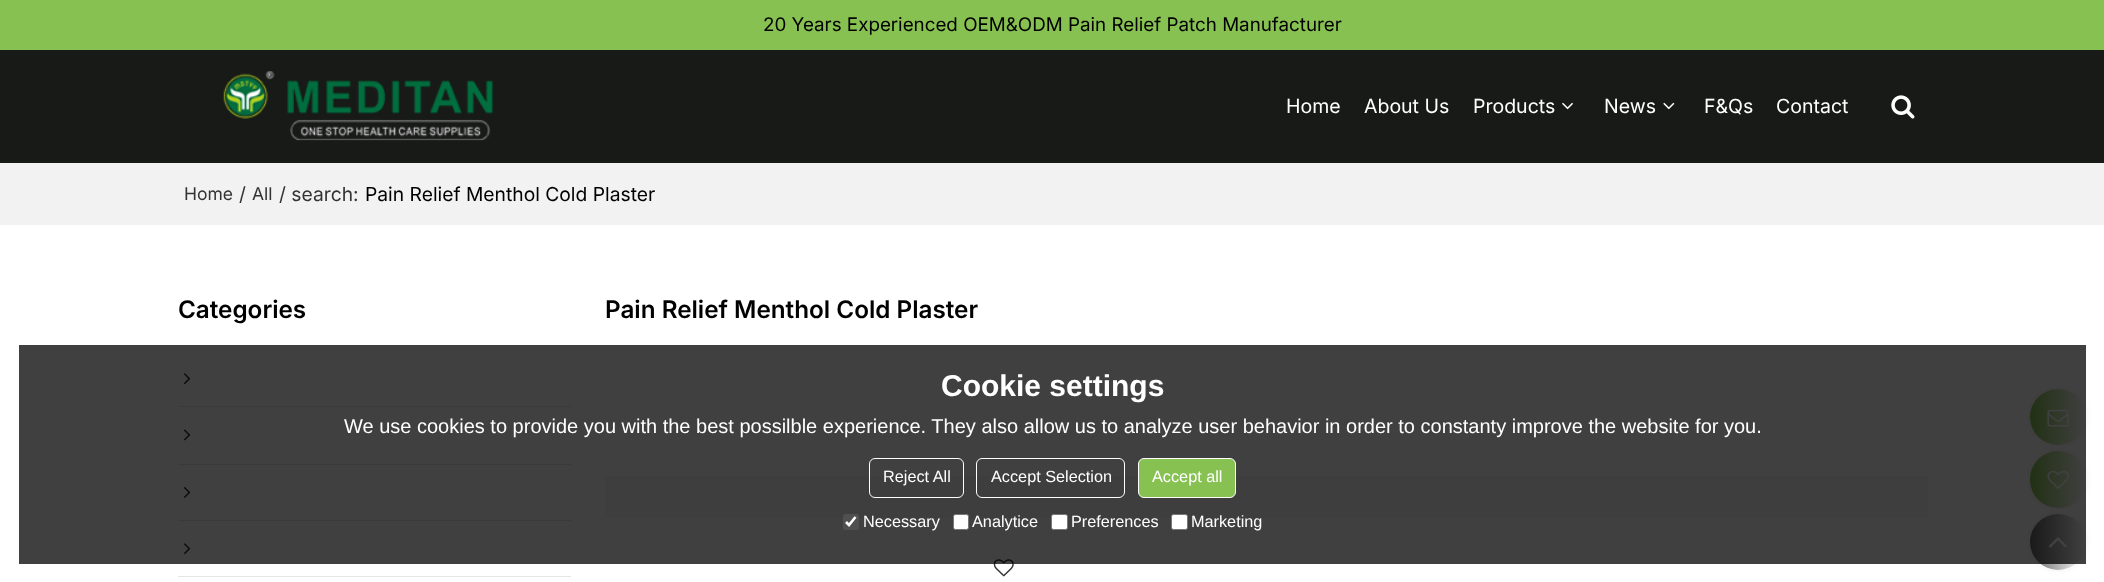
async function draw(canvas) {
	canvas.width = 2104;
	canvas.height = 582;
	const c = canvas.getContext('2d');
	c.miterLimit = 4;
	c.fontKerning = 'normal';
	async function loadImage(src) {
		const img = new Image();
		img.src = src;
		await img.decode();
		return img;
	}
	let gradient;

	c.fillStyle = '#fff';
	c.fillRect(0, 0, 2104, 582);
	c.fillStyle = '#87c152';
	c.fillRect(0, 0, 2104, 50);
	c.font = '18.8px Inter';
	c.fillStyle = '#000';
	c.fillText('20 Years Experienced OEM&ODM Pain Relief Patch Manufacturer', 763, 31);
	c.fillStyle = '#181a18';
	c.fillRect(0, 50, 2104, 113);
	c.drawImage(await loadImage('img1.png'), 223, 71, 270, 70);
	c.font = '19.5px Inter';
	c.fillStyle = '#fff';
	for (const [text, x, y] of [
		['Home', 1286, 113],
		['About Us', 1364, 113],
		['Products', 1473, 113],
	]) {
		c.fillText(text, x, y);
	}
	c.drawImage(await loadImage('img2.png'), 1562, 102, 11, 8);
	c.fillText('News', 1604, 113);
	c.drawImage(await loadImage('img3.png'), 1663, 102, 12, 8);
	c.fillText('F&Qs', 1704, 113);
	c.fillText('Contact', 1776, 113);
	c.drawImage(await loadImage('img4.png'), 1891, 95, 24, 24);
	c.fillStyle = '#f2f2f2';
	c.fillRect(0, 163, 2104, 62);
	c.font = '17.5px Inter';
	c.fillStyle = '#333';
	c.fillText('Home', 184, 200);
	c.font = '19.25px Inter';
	c.fillText('/', 239, 201);
	c.font = '17.5px Inter';
	c.fillText('All', 252, 200);
	c.font = '19.25px Inter';
	c.fillText('/ search:', 279, 201);
	c.fillStyle = '#000';
	c.fillText('Pain Relief Menthol Cold Plaster', 365, 201);
	c.font = '600 24.25px Inter';
	c.fillText('Categories', 178, 318);
	c.fillStyle = '#e5e5e5';
	c.fillRect(178, 406, 393, 1);
	c.drawImage(await loadImage('img5.png'), 183, 373, 8, 12);
	c.fillRect(178, 464, 393, 1);
	c.drawImage(await loadImage('img6.png'), 183, 429, 8, 12);
	c.fillRect(178, 520, 393, 1);
	c.drawImage(await loadImage('img7.png'), 183, 487, 8, 11);
	c.fillRect(178, 576, 393, 1);
	c.drawImage(await loadImage('img5.png'), 183, 543, 8, 12);
	c.fillStyle = '#000';
	c.fillText('Pain Relief Menthol Cold Plaster', 605, 318);
	c.fillStyle = '#f5f5f5';
	c.fillRect(605, 476, 1323, 42);
	c.drawImage(await loadImage('img8.png'), 993, 559, 21, 18);
	c.fillStyle = '#eee';
	c.filter = 'blur(3px)';
	c.beginPath();
	c.roundRect(2030, 389, 56, 56, 28);
	c.fill();
	c.filter = 'none';
	gradient = c.createLinearGradient(2030, 417, 2086, 417);
	gradient.addColorStop(0, '#87c152');
	gradient.addColorStop(1, '#fff');
	c.fillStyle = gradient;
	c.beginPath();
	c.arc(2058, 417, 28, 0, 2 * Math.PI);
	c.fill();
	c.drawImage(await loadImage('img9.png'), 2047, 409, 22, 18);
	c.fillStyle = '#eee';
	c.filter = 'blur(3px)';
	c.beginPath();
	c.roundRect(2030, 451, 56, 57, 28);
	c.fill();
	c.filter = 'none';
	gradient = c.createLinearGradient(2030, 479, 2086, 479);
	gradient.addColorStop(0, '#87c152');
	gradient.addColorStop(1, '#fff');
	c.fillStyle = gradient;
	c.beginPath();
	c.roundRect(2030, 451, 56, 57, 28);
	c.fill();
	c.drawImage(await loadImage('img10.png'), 2047, 470, 22, 19);
	c.fillStyle = '#eee';
	c.filter = 'blur(3px)';
	c.beginPath();
	c.roundRect(2030, 514, 56, 56, 28);
	c.fill();
	c.filter = 'none';
	gradient = c.createLinearGradient(2030, 542, 2086, 542);
	gradient.addColorStop(0, '#666');
	gradient.addColorStop(1, '#fff');
	c.fillStyle = gradient;
	c.beginPath();
	c.arc(2058, 542, 28, 0, 2 * Math.PI);
	c.fill();
	c.drawImage(await loadImage('img11.png'), 2049, 537, 18, 11);
	c.fillStyle = '#000000bf';
	c.fillRect(19, 345, 2067, 219);
	c.font = 'bold 30px Liberation Sans';
	c.fillStyle = '#fff';
	c.fillText('Cookie settings', 941, 396);
	c.font = '20px Liberation Sans';
	c.fillText('We use cookies to provide you with the best possilble experience. They also allow us to analyze user behavior in order to constanty improve the website for you.', 344, 433);
	c.beginPath();
	c.roundRect(869.5, 458.5, 94, 39, 5.5);
	c.strokeStyle = '#fff';
	c.stroke();
	c.font = '16.25px Liberation Sans';
	c.fillText('Reject All', 883, 482);
	c.beginPath();
	c.roundRect(976.5, 458.5, 148, 39, 5.5);
	c.stroke();
	c.fillText('Accept Selection', 991, 482);
	c.fillStyle = '#87c152';
	c.beginPath();
	c.roundRect(1138.5, 458.5, 97, 39, 5.5);
	c.fill();
	c.stroke();
	c.fillStyle = '#fff';
	c.fillText('Accept all', 1152, 482);
	c.fillStyle = '#505050';
	c.beginPath();
	c.roundRect(843, 514, 16, 16, 2.5);
	c.fill();
	c.beginPath();
	c.moveTo(846, 522);
	c.lineTo(849, 525);
	c.lineTo(855.5, 517);
	c.lineWidth = 2.6;
	c.stroke();
	c.fillStyle = '#fff';
	c.fillText('Necessary', 863, 527);
	c.beginPath();
	c.roundRect(953.5, 514.5, 15, 15, 2);
	c.fill();
	c.strokeStyle = '#767676';
	c.lineWidth = 1;
	c.stroke();
	c.fillText('Analytice', 972, 527);
	c.beginPath();
	c.roundRect(1051.5, 514.5, 16, 15, 2);
	c.fill();
	c.stroke();
	c.fillText('Preferences', 1071, 527);
	c.beginPath();
	c.roundRect(1171.5, 514.5, 16, 15, 2);
	c.fill();
	c.stroke();
	c.fillText('Marketing', 1191, 527);
}

draw(document.querySelector('canvas'));
